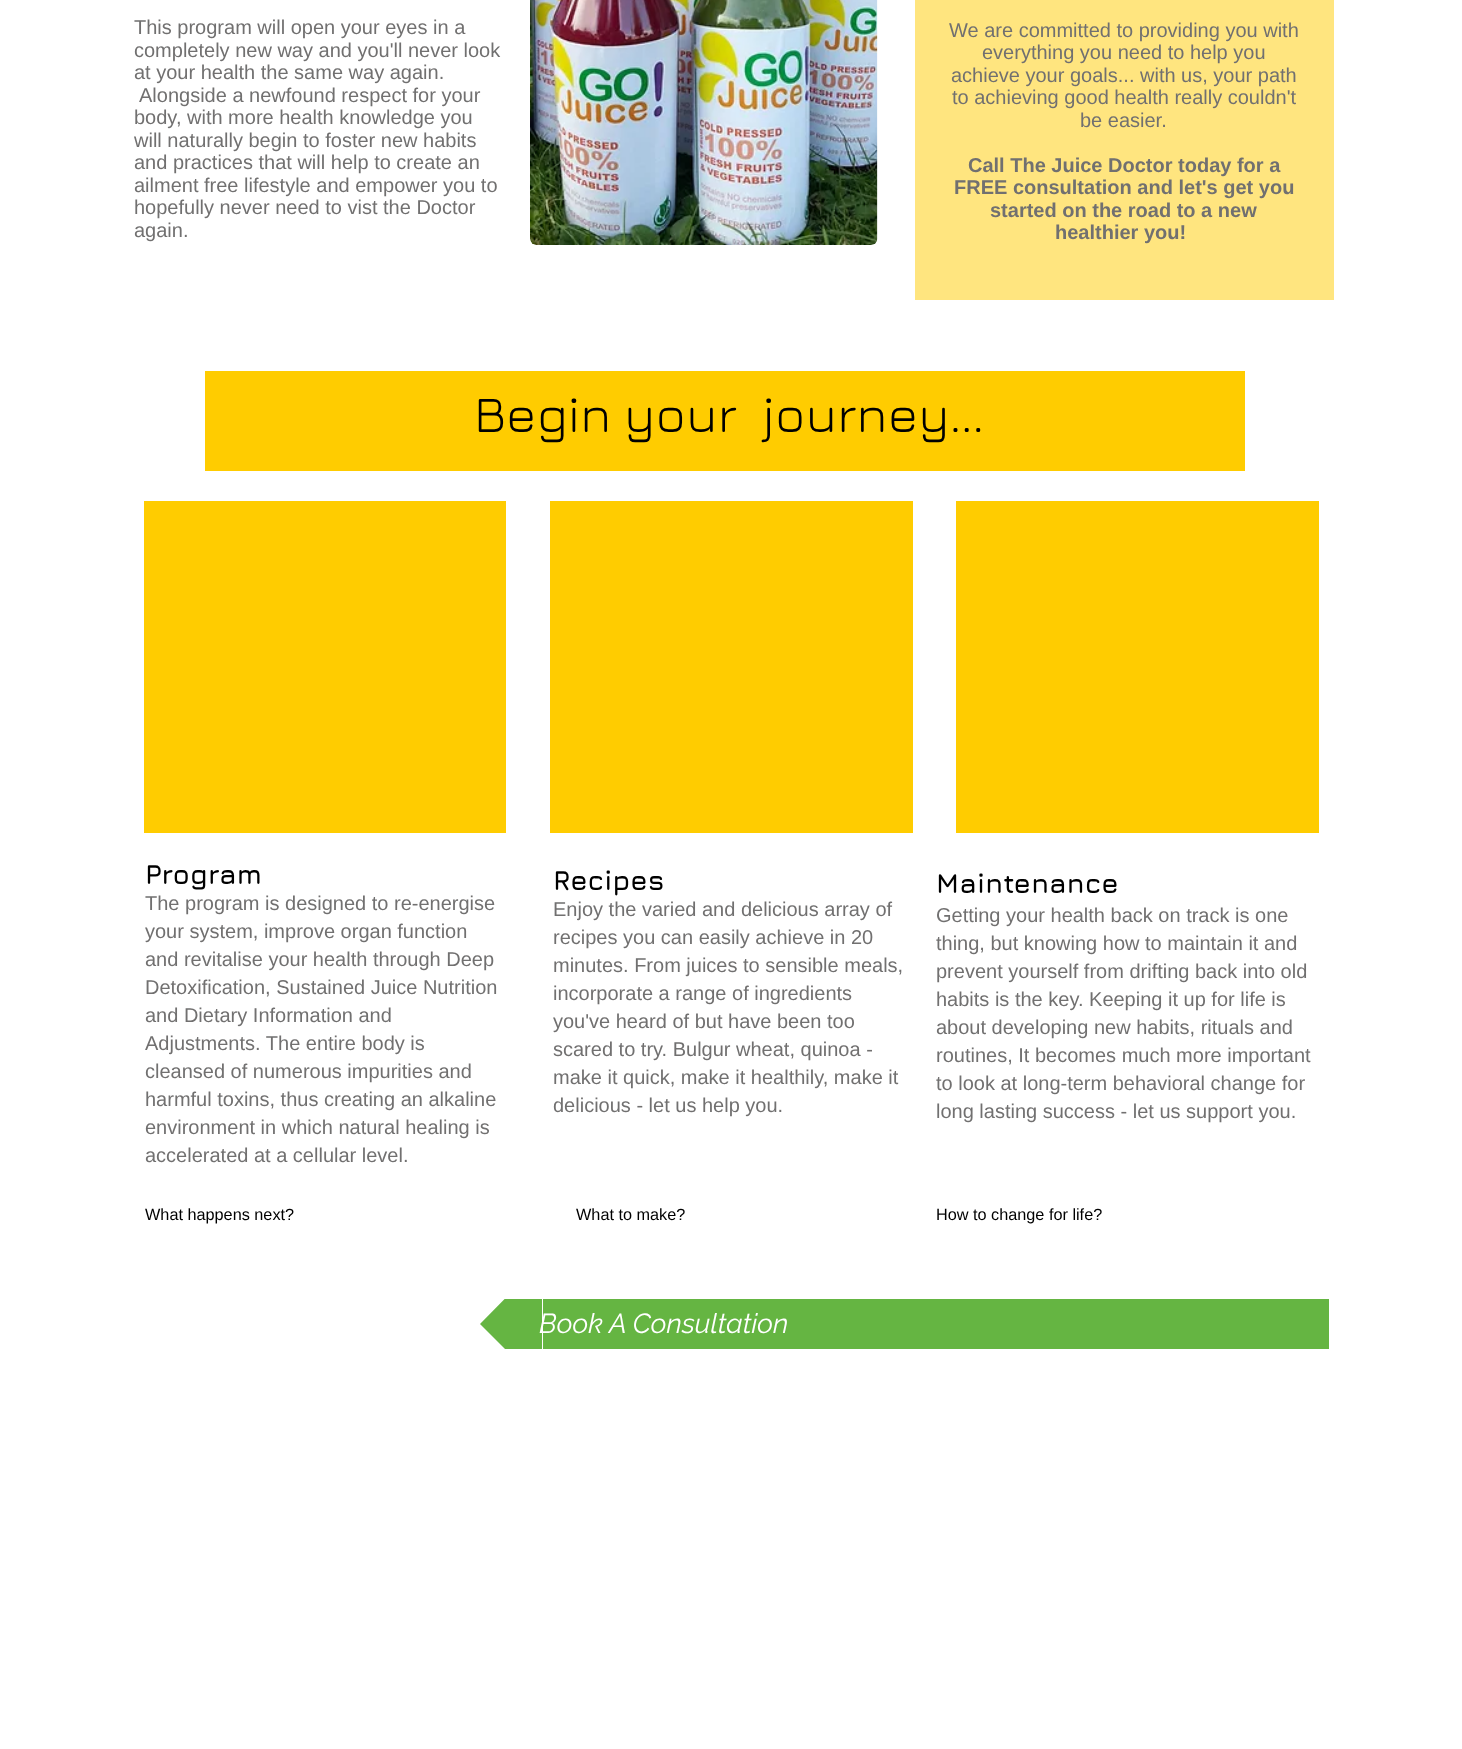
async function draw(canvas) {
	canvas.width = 1462;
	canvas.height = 1749;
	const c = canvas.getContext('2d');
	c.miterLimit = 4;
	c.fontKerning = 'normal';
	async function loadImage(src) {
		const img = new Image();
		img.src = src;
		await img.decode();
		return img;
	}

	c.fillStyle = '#fff';
	c.fillRect(0, 0, 1462, 1749);
	c.font = '20px Liberation Sans';
	c.fillStyle = '#717070';
	for (const [text, x, y] of [
		['This program will open your eyes in a', 134, 34],
		['completely new way and you\'ll never look', 134, 57],
		['at your health the same way again.', 134, 79],
		['Alongside a newfound respect for your', 139, 102],
		['body, with more health knowledge you', 134, 124],
		['will naturally begin to foster new habits', 134, 147],
		['and practices that will help to create an', 134, 169],
		['ailment free lifestyle and empower you to', 134, 192],
		['hopefully never need to vist the Doctor', 134, 214],
		['again.', 134, 237],
	]) {
		c.fillText(text, x, y);
	}
	c.drawImage(await loadImage('img1.png'), 530, 0, 348, 245);
	c.fillStyle = '#ffe57f';
	c.fillRect(915, 0, 419, 300);
	c.fillStyle = '#717070';
	for (const [text, x, y] of [
		['We are committed to providing you with', 949, 37],
		['everything you need to help you', 982, 59],
		['achieve your goals... with us, your path', 951, 82],
		['to achieving good health really couldn\'t', 952, 104],
		['be easier.', 1080, 127],
	]) {
		c.fillText(text, x, y);
	}
	c.font = 'bold 20px Liberation Sans';
	for (const [text, x, y] of [
		['Call The Juice Doctor today for a', 968, 172],
		['FREE consultation and let\'s get you', 954, 194],
		['started on the road to a new', 990, 217],
		['healthier you!', 1055, 239],
	]) {
		c.fillText(text, x, y);
	}
	c.fillStyle = '#fc0';
	c.fillRect(205, 371, 1040, 100);
	c.font = '51.25px Jura';
	c.fillStyle = '#000';
	c.fillText('Begin your  journey...', 474, 432);
	for (const [x, y, w, h, color] of [
		[144, 501, 362, 332, '#fc0'],
		[550, 501, 363, 332, '#fc0'],
		[956, 501, 363, 332, '#fc0'],
	]) {
		c.fillStyle = color;
		c.fillRect(x, y, w, h);
	}
	c.font = 'bold 27.5px Jura';
	c.fillStyle = '#000';
	c.fillText('Program', 145, 884);
	c.font = '20px Liberation Sans';
	c.fillStyle = '#717070';
	for (const [text, x, y] of [
		['The program is designed to re-energise', 145, 910],
		['your system, improve organ function', 145, 938],
		['and revitalise your health through Deep', 145, 966],
		['Detoxification, Sustained Juice Nutrition', 145, 994],
		['and Dietary Information and', 145, 1022],
		['Adjustments. The entire body is', 145, 1050],
		['cleansed of numerous impurities and', 145, 1078],
		['harmful toxins, thus creating an alkaline', 145, 1106],
		['environment in which natural healing is', 145, 1134],
		['accelerated at a cellular level.', 145, 1162],
	]) {
		c.fillText(text, x, y);
	}
	c.font = 'bold 27.5px Jura';
	c.fillStyle = '#000';
	c.fillText('Recipes', 553, 890);
	c.font = '20px Liberation Sans';
	c.fillStyle = '#717070';
	for (const [text, x, y] of [
		['Enjoy the varied and delicious array of', 553, 916],
		['recipes you can easily achieve in 20', 553, 944],
		['minutes. From juices to sensible meals,', 553, 972],
		['incorporate a range of ingredients', 553, 1000],
		['you\'ve heard of but have been too', 553, 1028],
		['scared to try. Bulgur wheat, quinoa -', 553, 1056],
		['make it quick, make it healthily, make it', 553, 1084],
		['delicious - let us help you.', 553, 1112],
	]) {
		c.fillText(text, x, y);
	}
	c.font = 'bold 27.5px Jura';
	c.fillStyle = '#000';
	c.fillText('Maintenance', 936, 893);
	c.font = '20px Liberation Sans';
	c.fillStyle = '#717070';
	for (const [text, x, y] of [
		['Getting your health back on track is one', 936, 922],
		['thing, but knowing how to maintain it and', 936, 950],
		['prevent yourself from drifting back into old', 936, 978],
		['habits is the key. Keeping it up for life is', 936, 1006],
		['about developing new habits, rituals and', 936, 1034],
		['routines, It becomes much more important', 936, 1062],
		['to look at long-term behavioral change for', 936, 1090],
		['long lasting success - let us support you.', 936, 1118],
	]) {
		c.fillText(text, x, y);
	}
	c.font = '16.25px Liberation Sans';
	c.fillStyle = '#000';
	for (const [text, x, y] of [
		['What happens next?', 145, 1220],
		['What to make?', 576, 1220],
		['How to change for life?', 936, 1220],
	]) {
		c.fillText(text, x, y);
	}
	c.save();
	c.beginPath();
	c.rect(480, 1299, 849, 50);
	c.clip();
	c.fillStyle = '#65b542';
	c.beginPath();
	c.moveTo(542, 1324);
	c.lineTo(480, 1324);
	c.lineTo(542, 1261);
	c.closePath();
	c.moveTo(480, 1324);
	c.lineTo(542, 1324);
	c.lineTo(542, 1386);
	c.closePath();
	c.fill();
	c.restore();
	c.fillStyle = '#65b542';
	c.fillRect(543, 1299, 786, 50);
	c.font = 'italic 27.5px Raleway';
	c.fillStyle = '#fff';
	c.fillText('Book A Consultation', 539, 1333);
}

draw(document.querySelector('canvas'));
